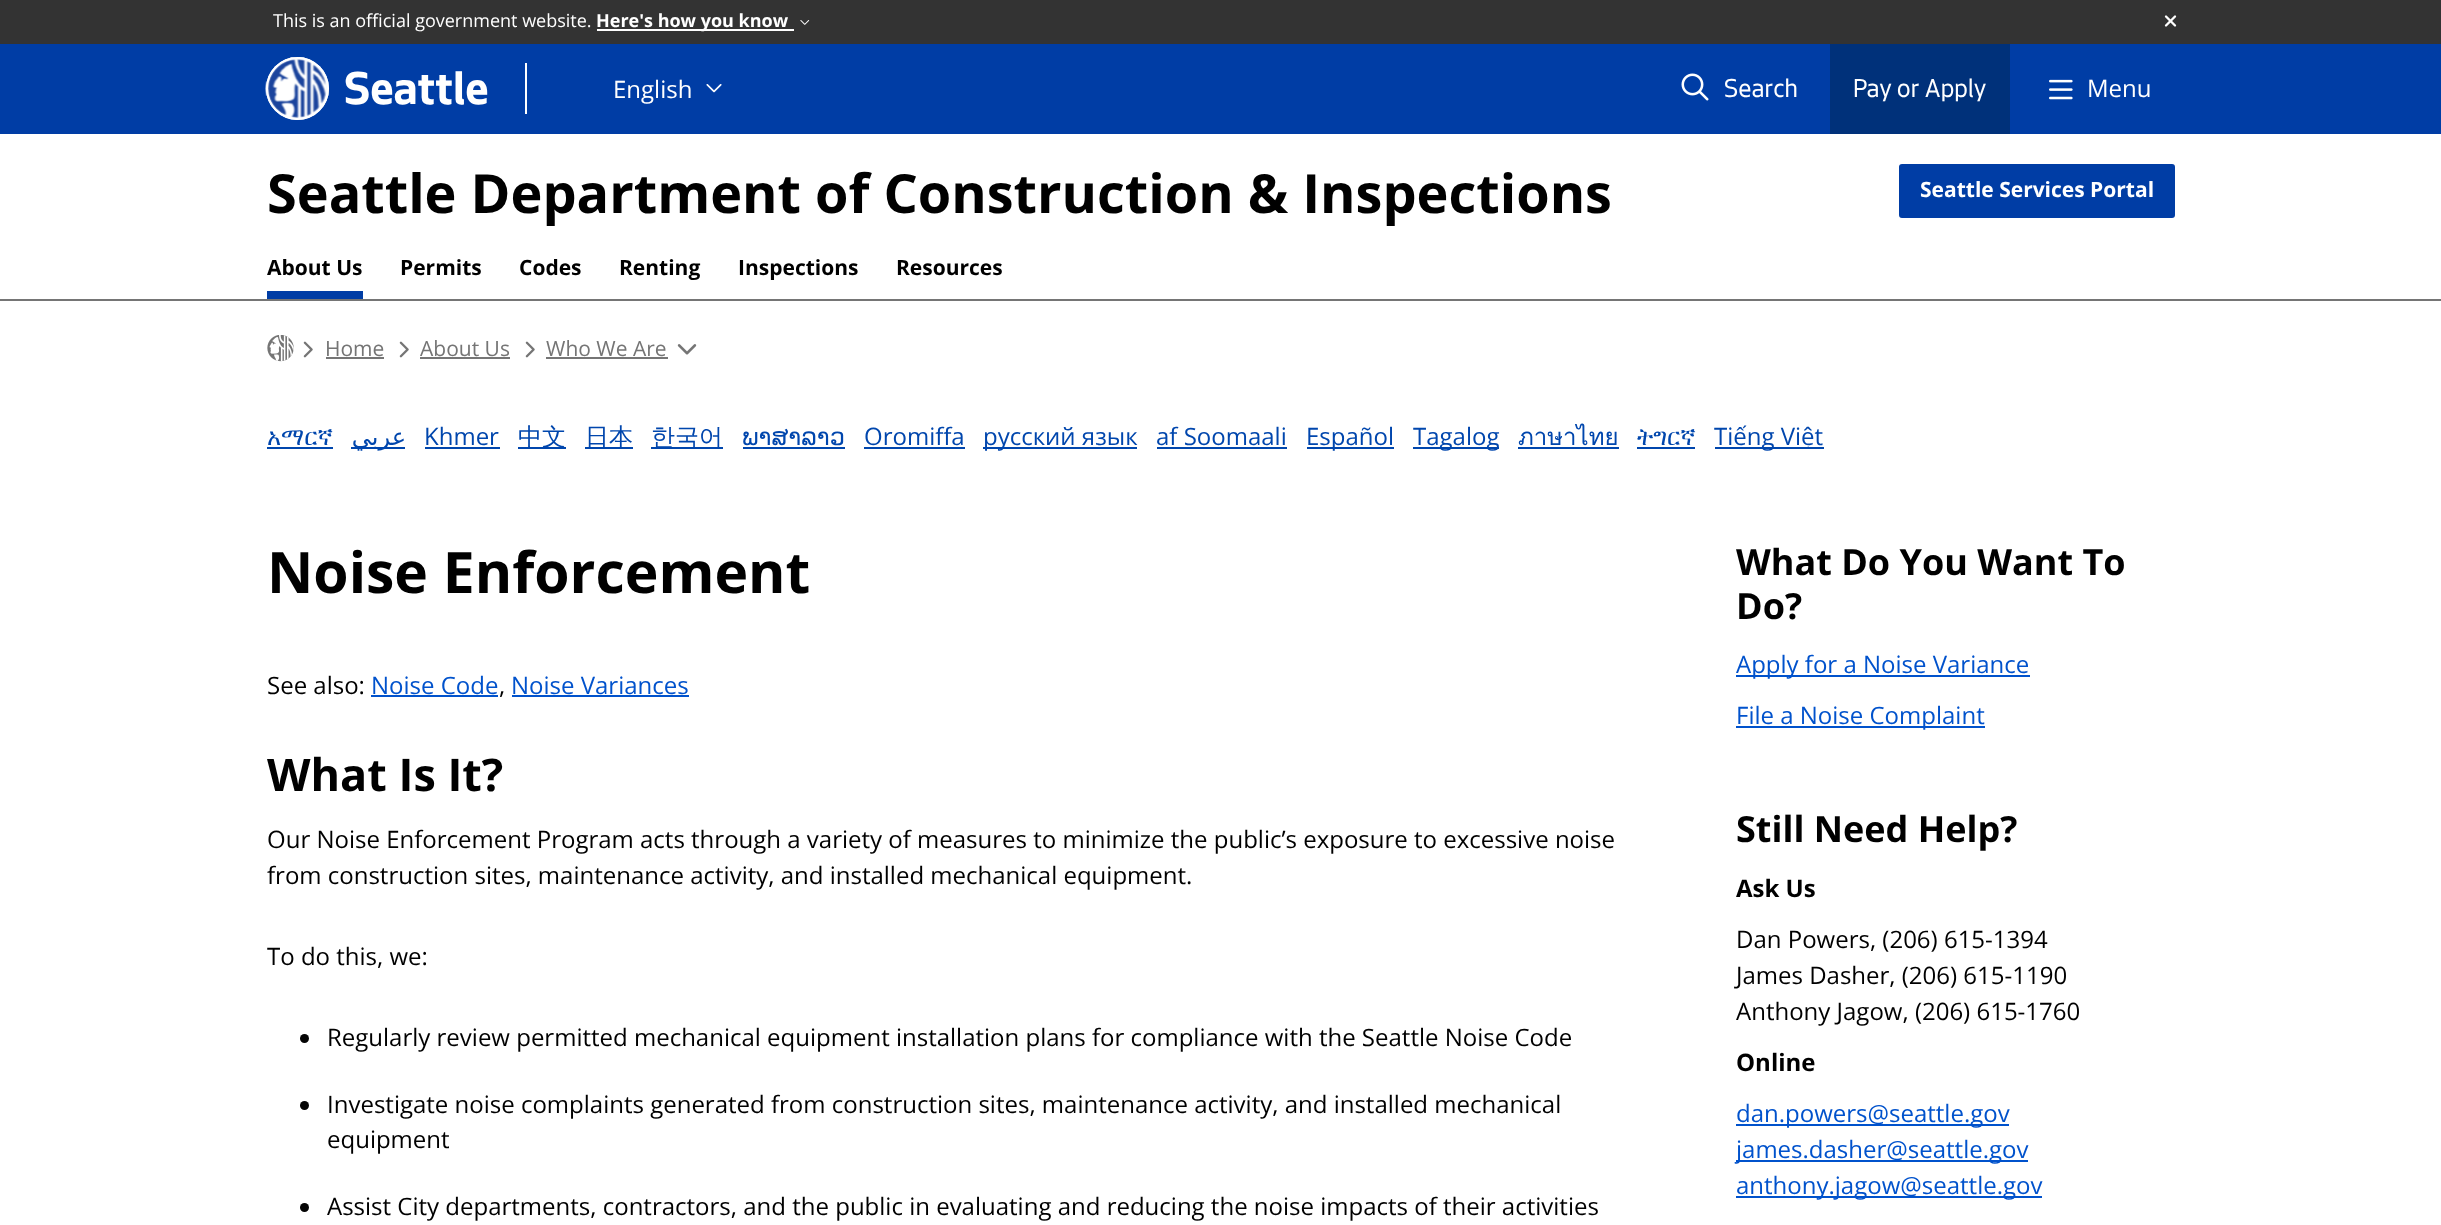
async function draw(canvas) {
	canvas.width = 2441;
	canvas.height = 1225;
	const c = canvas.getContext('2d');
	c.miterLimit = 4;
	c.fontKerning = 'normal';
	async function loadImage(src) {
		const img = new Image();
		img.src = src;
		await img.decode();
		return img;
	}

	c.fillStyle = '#fff';
	c.fillRect(0, 0, 2441, 1225);
	c.fillStyle = '#003da5';
	c.fillRect(0, 44, 2441, 90);
	c.fillStyle = '#333';
	c.fillRect(0, 0, 2441, 44);
	c.font = '18px Open Sans';
	c.fillStyle = '#fff';
	c.fillText('This is an official government website.', 273, 27);
	c.fillRect(597, 29, 197, 2);
	c.font = 'bold 18px Open Sans';
	c.fillText('Here\'s how you know', 596, 27);
	c.drawImage(await loadImage('img1.png'), 800, 20, 10, 5);
	c.drawImage(await loadImage('img2.png'), 2164, 15, 13, 12);
	c.beginPath();
	c.arc(297.5, 88.5, 31.5, 0, 2 * Math.PI);
	c.fill();
	c.drawImage(await loadImage('img3.png'), 265, 57, 64, 63);
	c.beginPath();
	c.arc(297.5, 88.5, 30.5, 0, 2 * Math.PI);
	c.strokeStyle = '#fff';
	c.lineWidth = 2;
	c.stroke();
	c.font = 'bold 48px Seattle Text';
	c.fillText('Seattle', 344, 104);
	c.fillRect(525, 63, 2, 51);
	c.font = '24px Open Sans';
	c.fillText('English', 613, 98);
	c.drawImage(await loadImage('img4.png'), 706, 84, 16, 9);
	c.drawImage(await loadImage('img5.png'), 1681, 73, 28, 28);
	c.font = '27px Seattle Text';
	c.fillText('Search', 1724, 97);
	c.fillStyle = '#00317a';
	c.fillRect(1830, 44, 180, 90);
	c.fillStyle = '#fff';
	c.fillText('Pay or Apply', 1853, 97);
	c.drawImage(await loadImage('img6.png'), 2049, 79, 24, 21);
	c.font = '24px Open Sans';
	c.fillText('Menu', 2087, 97);
	c.font = 'bold 54px Open Sans';
	c.fillStyle = '#000';
	c.fillText('Seattle Department of Construction & Inspections', 267, 213);
	c.fillStyle = '#003da5';
	c.beginPath();
	c.roundRect(1900.5, 165.5, 273, 51, 1.5);
	c.fill();
	c.strokeStyle = '#003da5';
	c.lineWidth = 3;
	c.stroke();
	c.font = 'bold 21px Open Sans';
	c.fillStyle = '#fff';
	c.fillText('Seattle Services Portal', 1920, 197);
	c.fillStyle = '#003da5';
	c.fillRect(267, 291, 96, 8);
	c.fillStyle = '#000';
	for (const [text, x, y] of [
		['About Us', 267, 275],
		['Permits', 400, 275],
		['Codes', 519, 275],
		['Renting', 619, 275],
		['Inspections', 738, 275],
		['Resources', 896, 275],
	]) {
		c.fillText(text, x, y);
	}
	c.fillStyle = '#757575';
	c.fillRect(0, 299, 2441, 2);
	c.drawImage(await loadImage('img7.png'), 267, 335, 27, 27);
	c.drawImage(await loadImage('img8.png'), 303, 341, 10, 17);
	c.font = '21px Open Sans';
	c.fillText('Home', 325, 356);
	c.fillRect(326, 357, 58, 2);
	c.drawImage(await loadImage('img8.png'), 399, 341, 10, 17);
	c.fillText('About Us', 420, 356);
	c.fillRect(420, 357, 90, 2);
	c.drawImage(await loadImage('img8.png'), 525, 341, 10, 17);
	c.fillText('Who We Are', 546, 356);
	c.fillRect(546, 357, 122, 2);
	c.drawImage(await loadImage('img9.png'), 677, 344, 20, 11);
	c.font = '24px FreeSerif';
	c.fillStyle = '#0046ad';
	c.fillText('አማርኛ', 267, 445);
	c.fillRect(267, 447, 66, 2);
	c.fillRect(351, 447, 54, 2);
	c.direction = 'rtl';
	c.font = '24px DejaVu Sans';
	c.fillText('عربي', 406, 445);
	c.direction = 'ltr';
	c.font = '24px Open Sans';
	c.fillText('Khmer', 424, 445);
	c.fillRect(425, 447, 75, 2);
	c.fillRect(518, 447, 48, 2);
	c.font = '500 24px WenQuanYi Zen Hei';
	c.fillText('中文', 518, 445);
	c.fillRect(585, 447, 48, 2);
	c.fillText('日本', 585, 445);
	c.fillRect(651, 447, 72, 2);
	c.fillText('한국어', 651, 445);
	c.font = '24px DejaVu Sans';
	c.fillText('ພາສາລາວ', 742, 445);
	c.fillRect(743, 447, 102, 2);
	c.font = '24px Open Sans';
	c.fillText('Oromiffa', 864, 445);
	c.fillRect(864, 447, 101, 2);
	c.fillRect(983, 447, 154, 2);
	c.fillText('русский язык', 983, 445);
	c.fillText('af Soomaali', 1156, 445);
	c.fillRect(1157, 447, 130, 2);
	c.fillRect(1307, 447, 87, 2);
	c.fillText('Español', 1306, 445);
	c.fillRect(1413, 447, 86, 2);
	c.fillText('Tagalog', 1413, 445);
	c.font = '24px Loma';
	c.fillText('ภาษาไทย', 1518, 445);
	c.fillRect(1518, 447, 101, 2);
	c.font = '24px FreeSerif';
	c.fillText('ትግርኛ', 1637, 445);
	c.fillRect(1637, 447, 58, 2);
	c.fillRect(1715, 447, 109, 2);
	c.font = '24px Open Sans';
	c.fillText('Tiếng Việt', 1714, 445);
	c.font = 'bold 57px Open Sans';
	c.fillStyle = '#000';
	c.fillText('Noise Enforcement', 267, 593);
	c.font = '24px Open Sans';
	c.fillText('See also:', 267, 694);
	c.fillStyle = '#0052cc';
	c.fillText('Noise Code', 371, 694);
	c.fillRect(371, 695, 127, 2);
	c.fillStyle = '#000';
	c.fillText(',', 499, 694);
	c.fillStyle = '#0052cc';
	c.fillText('Noise Variances', 511, 694);
	c.fillRect(512, 695, 177, 2);
	c.font = 'bold 45px Open Sans';
	c.fillStyle = '#000';
	c.fillText('What Is It?', 267, 791);
	c.font = '24px Open Sans';
	for (const [text, x, y] of [
		['Our Noise Enforcement Program acts through a variety of measures to minimize the public’s exposure to excessive noise', 267, 848],
		['from construction sites, maintenance activity, and installed mechanical equipment.', 267, 884],
		['To do this, we:', 267, 965],
	]) {
		c.fillText(text, x, y);
	}
	c.fillStyle = '#040404';
	c.beginPath();
	c.arc(304.5, 1038.5, 4.5, 0, 2 * Math.PI);
	c.fill();
	c.fillStyle = '#000';
	c.fillText('Regularly review permitted mechanical equipment installation plans for compliance with the Seattle Noise Code', 327, 1046);
	c.fillStyle = '#040404';
	c.beginPath();
	c.arc(304.5, 1105.5, 4.5, 0, 2 * Math.PI);
	c.fill();
	c.fillStyle = '#000';
	c.fillText('Investigate noise complaints generated from construction sites, maintenance activity, and installed mechanical', 327, 1113);
	c.fillText('equipment', 327, 1148);
	c.fillStyle = '#040404';
	c.beginPath();
	c.arc(304.5, 1207.5, 4.5, 0, 2 * Math.PI);
	c.fill();
	c.fillStyle = '#000';
	c.fillText('Assist City departments, contractors, and the public in evaluating and reducing the noise impacts of their activities', 327, 1215);
	c.font = 'bold 36px Open Sans';
	c.fillText('What Do You Want To', 1736, 575);
	c.fillText('Do?', 1736, 619);
	c.fillStyle = '#0052cc';
	c.fillRect(1736, 675, 294, 2);
	c.font = '24px Open Sans';
	c.fillText('Apply for a Noise Variance', 1736, 673);
	c.fillRect(1736, 726, 249, 2);
	c.fillText('File a Noise Complaint', 1736, 724);
	c.font = 'bold 36px Open Sans';
	c.fillStyle = '#000';
	c.fillText('Still Need Help?', 1736, 842);
	c.font = 'bold 24px Open Sans';
	c.fillText('Ask Us', 1736, 897);
	c.font = '24px Open Sans';
	for (const [text, x, y] of [
		['Dan Powers, (206) 615-1394', 1736, 948],
		['James Dasher, (206) 615-1190', 1736, 984],
		['Anthony Jagow, (206) 615-1760', 1736, 1020],
	]) {
		c.fillText(text, x, y);
	}
	c.font = 'bold 24px Open Sans';
	c.fillText('Online', 1736, 1071);
	c.fillStyle = '#0052cc';
	c.fillRect(1736, 1124, 273, 2);
	c.font = '24px Open Sans';
	c.fillText('dan.powers@seattle.gov', 1736, 1122);
	c.fillRect(1736, 1160, 292, 2);
	c.fillText('james.dasher@seattle.gov', 1736, 1158);
	c.fillRect(1736, 1196, 306, 2);
	c.fillText('anthony.jagow@seattle.gov', 1736, 1194);
}

draw(document.querySelector('canvas'));
